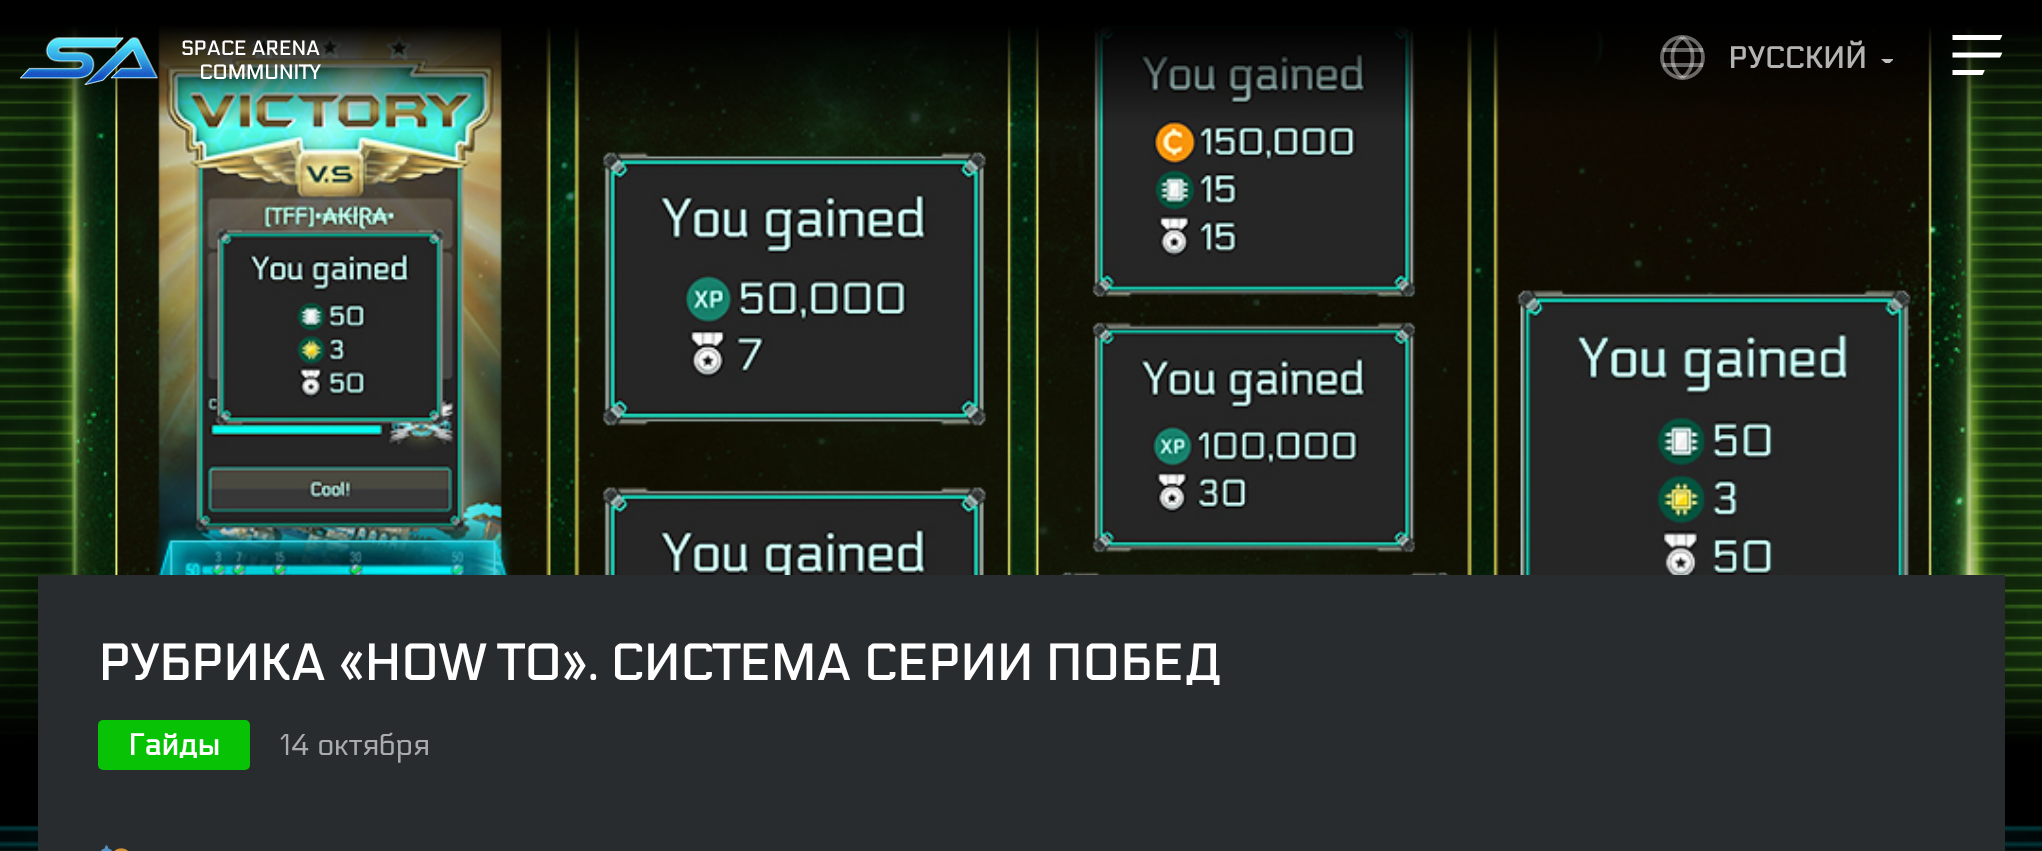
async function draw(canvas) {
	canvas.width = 2042;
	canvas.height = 851;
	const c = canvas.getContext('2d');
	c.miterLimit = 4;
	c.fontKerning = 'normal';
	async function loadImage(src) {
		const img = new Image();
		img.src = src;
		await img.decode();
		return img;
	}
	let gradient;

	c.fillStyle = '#fff';
	c.fillRect(0, 0, 2042, 851);
	c.drawImage(await loadImage('img2.png'), 0, 26, 2042, 799);
	gradient = c.createLinearGradient(1021, 0, 1021, 125);
	gradient.addColorStop(0.2, '#000');
	gradient.addColorStop(1, '#00000000');
	c.fillStyle = gradient;
	c.fillRect(0, 0, 2042, 123);
	c.drawImage(await loadImage('img1.png'), 20, 37, 138, 48);
	c.font = 'bold 20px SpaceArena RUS';
	c.fillStyle = '#fff';
	c.fillText('SPACE ARENA', 181, 55);
	c.fillText('COMMUNITY', 199, 79);
	c.drawImage(await loadImage('img4.png'), 0, 825, 2042, 26);
	c.fillStyle = '#292c2f';
	c.fillRect(38, 575, 1967, 276);
	c.font = 'bold 50px SpaceArena RUS';
	c.fillStyle = '#fff';
	c.fillText('РУБРИКА «HOW TO». СИСТЕМА СЕРИИ ПОБЕД', 98, 680);
	c.fillStyle = '#08c205';
	c.beginPath();
	c.roundRect(98, 720, 152, 50, 5);
	c.fill();
	c.font = 'bold 30px SpaceArena RUS';
	c.fillStyle = '#fff';
	c.fillText('Гайды', 128, 755);
	c.font = '30px SpaceArena RUS';
	c.fillStyle = '#a9abac';
	c.fillText('14 октября', 279, 755);
	c.drawImage(await loadImage('img3.png'), 101, 845, 27, 6);
	c.beginPath();
	c.arc(1682.5, 57.5, 20.5, 0, 2 * Math.PI);
	c.strokeStyle = '#ffffff66';
	c.lineWidth = 3.8;
	c.stroke();
	c.fillStyle = '#ffffff61';
	c.fillRect(1663, 48, 40, 4);
	c.fillRect(1663, 63, 40, 4);
	c.beginPath();
	c.moveTo(1682.5, 77.5);
	c.bezierCurveTo(1669, 69, 1669, 46, 1682.5, 37.5);
	c.stroke();
	c.beginPath();
	c.moveTo(1682.5, 77.5);
	c.bezierCurveTo(1696, 69, 1696, 46, 1682.5, 37.5);
	c.stroke();
	c.font = 'bold 30px SpaceArena RUS';
	c.fillStyle = '#b4b3b3';
	c.fillText('РУССКИЙ', 1728, 68);
	c.save();
	c.beginPath();
	c.rect(1880, 58, 13, 5);
	c.clip();
	c.fillStyle = '#bebebe';
	c.beginPath();
	c.moveTo(1887.5, 65);
	c.lineTo(1881, 59);
	c.lineTo(1894, 59);
	c.closePath();
	c.fill();
	c.restore();
	c.drawImage(await loadImage('img5.png'), 1952, 35, 51, 40);
}

draw(document.querySelector('canvas'));
